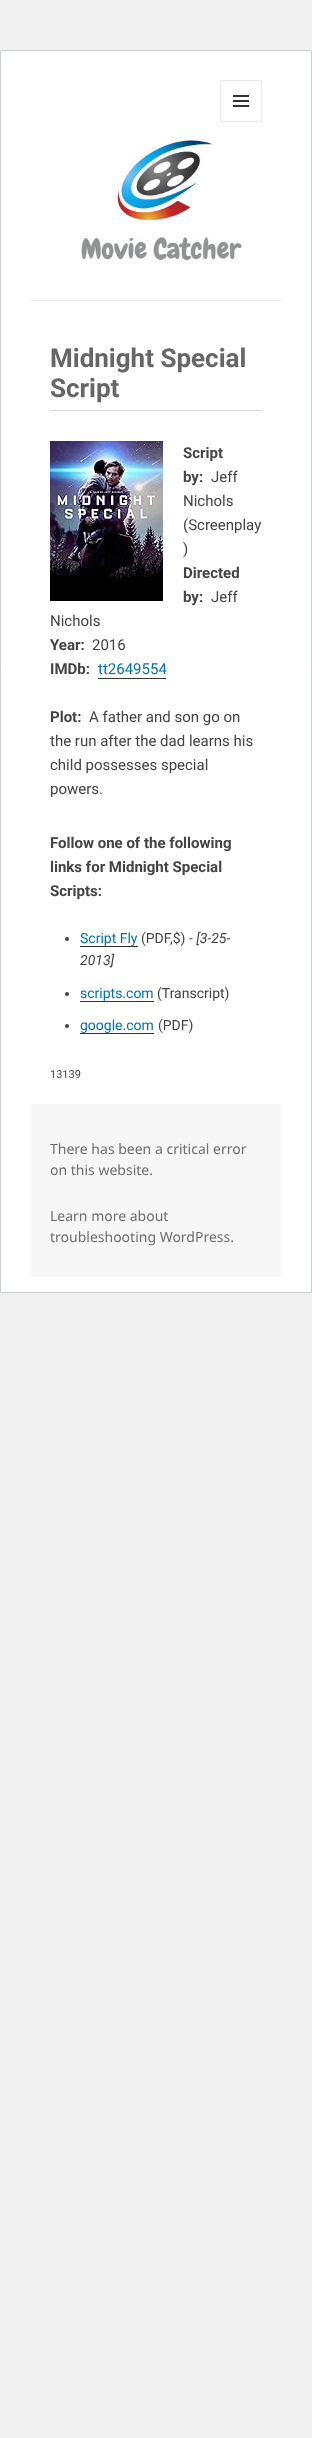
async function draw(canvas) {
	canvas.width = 312;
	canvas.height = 2438;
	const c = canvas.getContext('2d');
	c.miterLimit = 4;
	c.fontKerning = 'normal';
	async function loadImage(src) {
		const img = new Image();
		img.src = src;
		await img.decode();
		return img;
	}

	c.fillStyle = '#f1f1f1';
	c.fillRect(0, 0, 312, 2438);
	c.fillStyle = '#fff';
	c.beginPath();
	c.rect(0.5, 50.5, 311, 1242);
	c.fill();
	c.strokeStyle = '#ccd0d4';
	c.stroke();
	c.fillStyle = '#ebebeb';
	c.fillRect(31, 300, 250, 1);
	c.strokeStyle = '#ebebeb';
	c.strokeRect(220.5, 80.5, 41, 41);
	c.drawImage(await loadImage('img1.png'), 233, 95, 16, 12);
	c.drawImage(await loadImage('img2.png'), 81, 138, 164, 126);
	c.fillStyle = '#dadada';
	c.fillRect(50, 410, 212, 1);
	c.font = 'bold 26px Roboto';
	c.fillStyle = '#666';
	c.fillText('Midnight Special', 50, 367);
	c.fillText('Script', 50, 397);
	c.drawImage(await loadImage('img3.png'), 50, 441, 113, 160);
	c.font = 'bold 15px Roboto';
	c.fillStyle = '#444';
	c.fillText('Script', 183, 458);
	c.fillText('by:', 183, 482);
	c.font = '15px Roboto';
	for (const [text, x, y] of [
		['Jeff', 211, 482],
		['Nichols', 183, 506],
		['(Screenplay', 183, 530],
		[')', 183, 554],
	]) {
		c.fillText(text, x, y);
	}
	c.font = 'bold 15px Roboto';
	c.fillText('Directed', 183, 578);
	c.fillText('by:', 183, 602);
	c.font = '15px Roboto';
	c.fillText('Jeff', 211, 602);
	c.fillText('Nichols', 50, 626);
	c.font = 'bold 15px Roboto';
	c.fillText('Year:', 50, 650);
	c.font = '15px Roboto';
	c.fillText('2016', 92, 650);
	c.font = 'bold 15px Roboto';
	c.fillText('IMDb:', 50, 674);
	c.font = '15px Roboto';
	c.fillStyle = '#0073aa';
	c.fillText('tt2649554', 98, 674);
	c.fillStyle = '#333';
	c.fillRect(98, 678, 68, 1);
	c.font = 'bold 15px Roboto';
	c.fillStyle = '#444';
	c.fillText('Plot:', 50, 722);
	c.font = '15px Roboto';
	for (const [text, x, y] of [
		['A father and son go on', 89, 722],
		['the run after the dad learns his', 50, 746],
		['child possesses special', 50, 770],
		['powers.', 50, 794],
	]) {
		c.fillText(text, x, y);
	}
	c.font = 'bold 15px Roboto';
	for (const [text, x, y] of [
		['Follow one of the following', 50, 848],
		['links for Midnight Special', 50, 872],
		['Scripts:', 50, 896],
	]) {
		c.fillText(text, x, y);
	}
	c.beginPath();
	c.arc(67, 939, 2, 0, 2 * Math.PI);
	c.fill();
	c.font = '14px Roboto';
	c.fillStyle = '#0073aa';
	c.fillText('Script Fly', 80, 943);
	c.fillStyle = '#333';
	c.fillRect(80, 946, 58, 1);
	c.fillStyle = '#444';
	c.fillText('(PDF,$)', 141, 943);
	c.font = 'italic 14px Roboto';
	c.fillText('- [3-25-', 189, 943);
	c.fillText('2013]', 80, 965);
	c.beginPath();
	c.arc(67, 994, 2, 0, 2 * Math.PI);
	c.fill();
	c.font = '14px Roboto';
	c.fillStyle = '#0073aa';
	c.fillText('scripts.com', 80, 998);
	c.fillStyle = '#333';
	c.fillRect(80, 1001, 74, 1);
	c.fillStyle = '#444';
	c.fillText('(Transcript)', 157, 998);
	c.beginPath();
	c.arc(67, 1026, 2, 0, 2 * Math.PI);
	c.fill();
	c.fillStyle = '#0073aa';
	c.fillText('google.com', 80, 1030);
	c.fillStyle = '#333';
	c.fillRect(80, 1033, 74, 1);
	c.fillStyle = '#444';
	c.fillText('(PDF)', 158, 1030);
	c.font = '11px Roboto';
	c.fillText('13139', 50, 1078);
	c.fillStyle = '#f7f7f7';
	c.fillRect(31, 1104, 250, 173);
	c.font = '14px Noto Sans';
	c.fillStyle = '#6e6e6e';
	for (const [text, x, y] of [
		['There has been a critical error', 50, 1154],
		['on this website.', 50, 1175],
		['Learn more about', 50, 1221],
		['troubleshooting WordPress.', 50, 1242],
	]) {
		c.fillText(text, x, y);
	}
}

draw(document.querySelector('canvas'));
